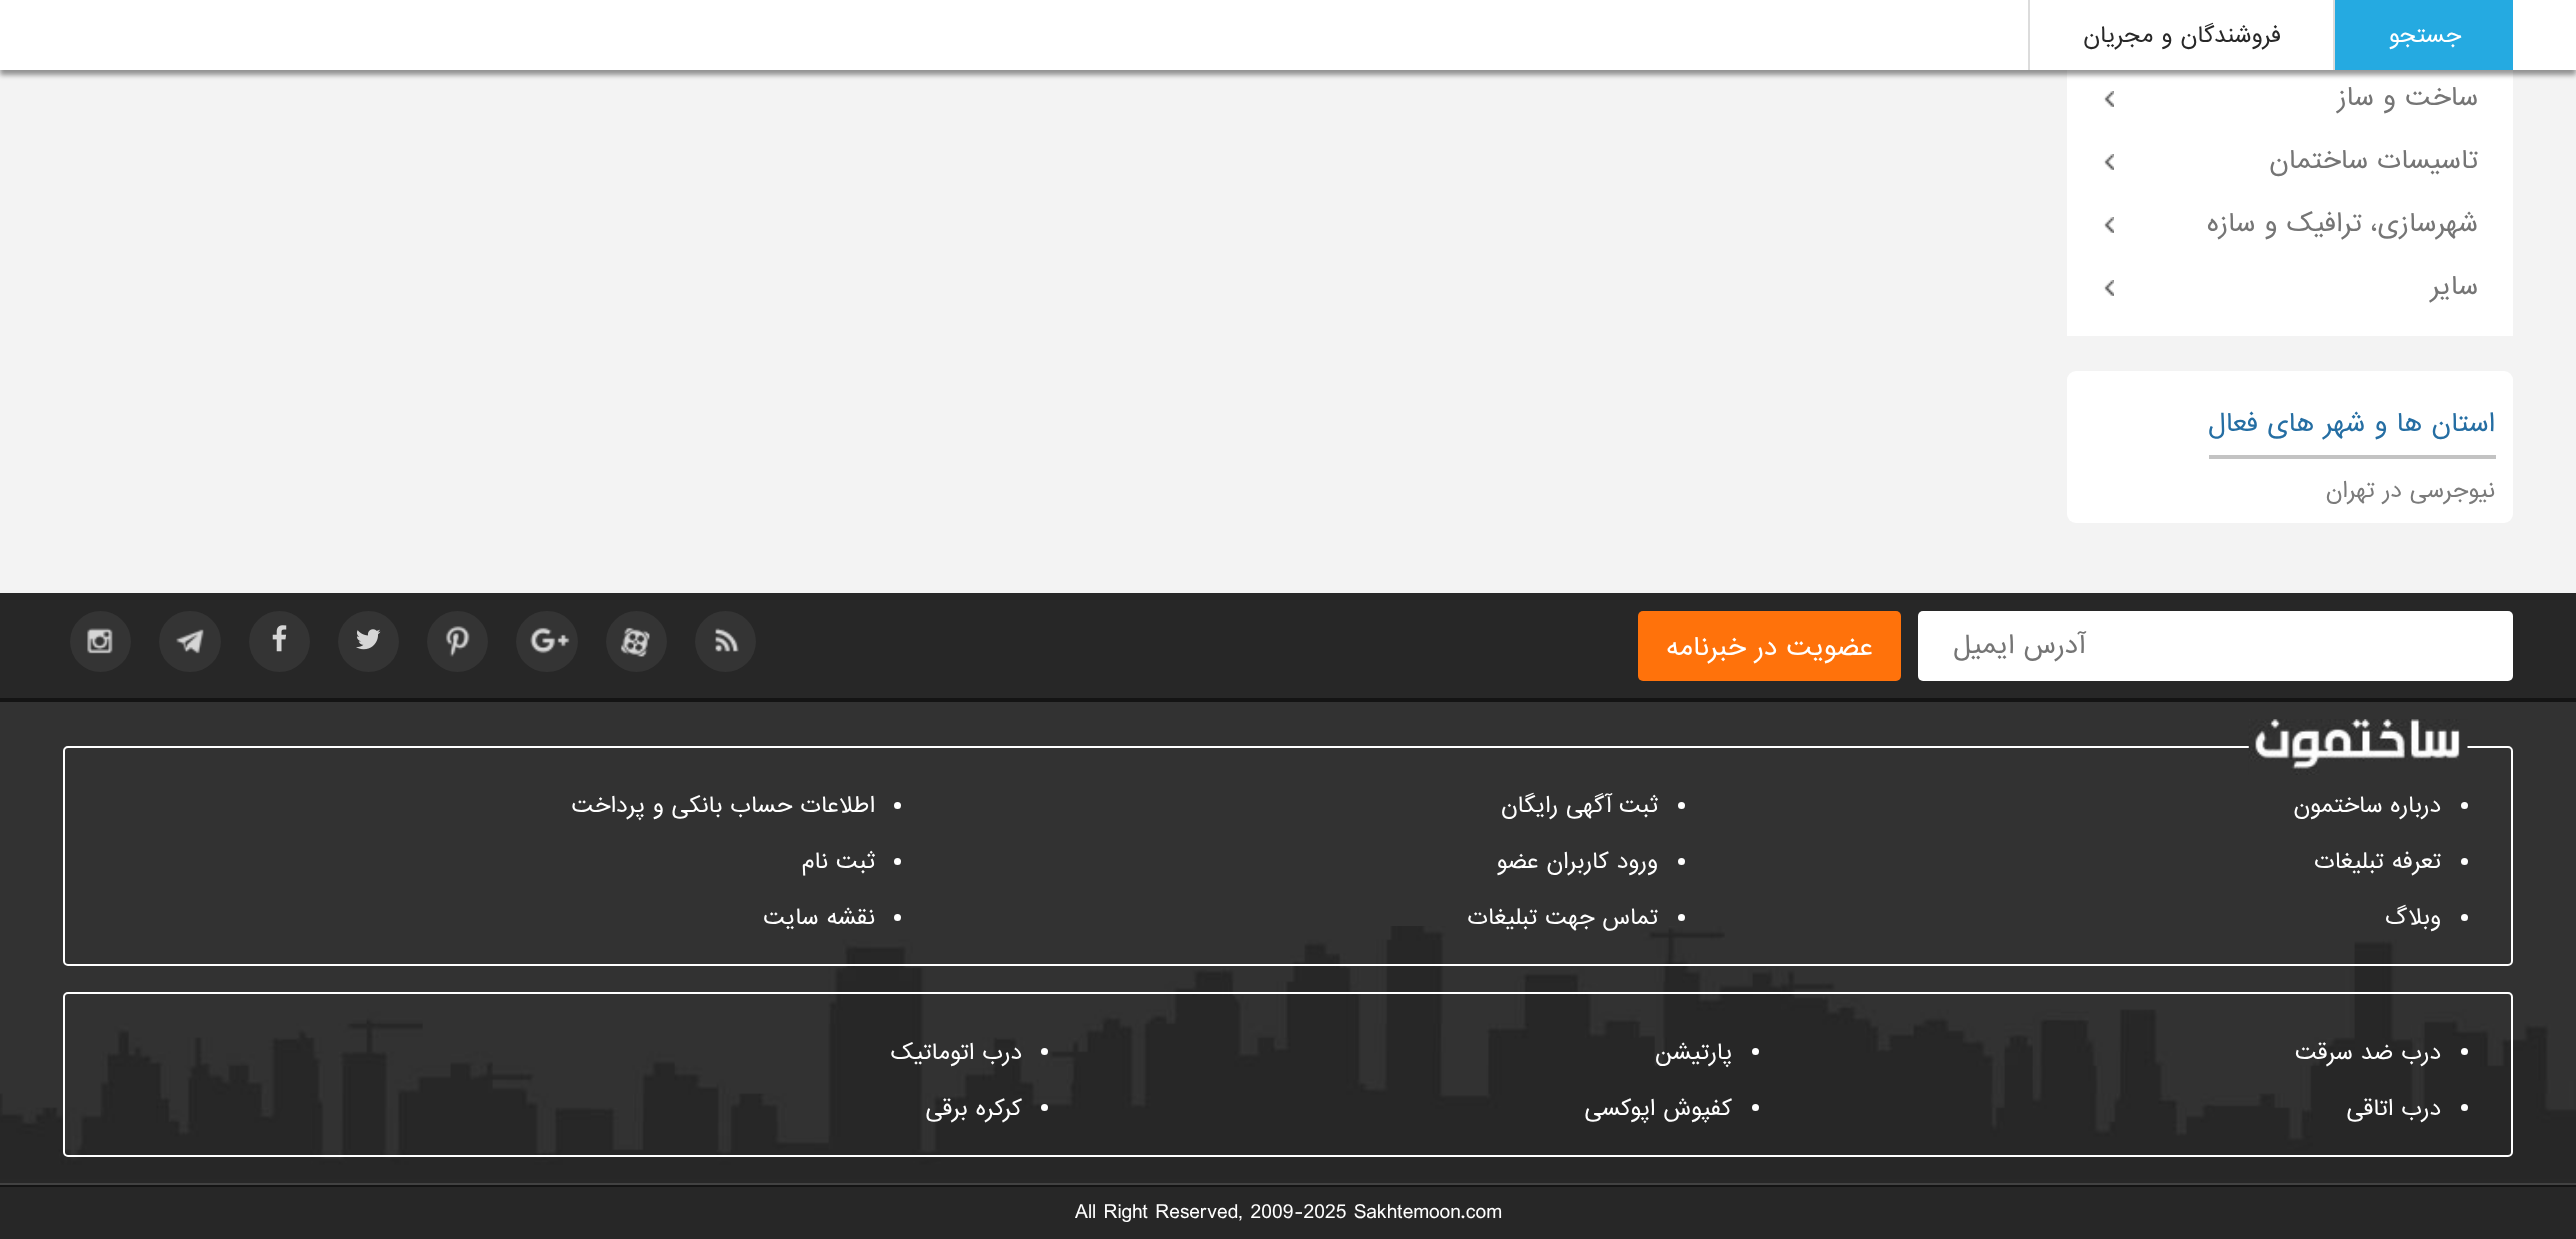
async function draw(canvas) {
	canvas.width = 2576;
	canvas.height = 1239;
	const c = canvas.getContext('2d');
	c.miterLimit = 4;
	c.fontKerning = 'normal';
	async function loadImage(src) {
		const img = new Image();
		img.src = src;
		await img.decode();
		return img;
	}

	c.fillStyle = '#f3f3f3';
	c.fillRect(0, 0, 2576, 1239);
	c.fillStyle = '#fff';
	c.fillRect(2067, 70, 446, 266);
	c.fillStyle = '#00000066';
	c.filter = 'blur(2.5px)';
	c.beginPath();
	c.rect(0, 5, 2576, 70);
	c.fill();
	c.filter = 'none';
	for (const [x, y, w, h, color] of [
		[0, 0, 2576, 70, '#fff'],
		[2335, 0, 178, 70, '#25aae1'],
		[2333, 0, 2, 70, '#dcdcdc'],
	]) {
		c.fillStyle = color;
		c.fillRect(x, y, w, h);
	}
	c.direction = 'rtl';
	c.font = '21.25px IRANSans';
	c.fillStyle = '#fff';
	c.fillText('جستجو', 2461, 42);
	c.fillStyle = '#dcdcdc';
	c.fillRect(2028, 0, 2, 70);
	c.fillStyle = '#282828';
	c.fillText('فروشندگان و مجریان', 2281, 42);
	c.drawImage(await loadImage('img1.png'), 2103, 91, 11, 16);
	c.font = '24.5px IRANSans';
	c.fillStyle = '#757575';
	c.fillText('ساخت و ساز', 2478, 105);
	c.drawImage(await loadImage('img1.png'), 2103, 154, 11, 16);
	c.fillText('تاسیسات ساختمان', 2478, 168);
	c.drawImage(await loadImage('img1.png'), 2103, 217, 11, 16);
	c.fillText('شهرسازی، ترافیک و سازه', 2478, 231);
	c.drawImage(await loadImage('img1.png'), 2103, 280, 11, 16);
	c.fillText('سایر', 2478, 294);
	c.fillStyle = '#fff';
	c.beginPath();
	c.roundRect(2067, 371, 446, 152, 9);
	c.fill();
	c.fillStyle = '#c3c3c3';
	c.fillRect(2209, 455, 287, 4);
	c.fillStyle = '#256ea3';
	c.fillText('استان ها و شهر های فعال', 2495, 431);
	c.font = '21px IRANSans';
	c.fillStyle = '#7b7b7b';
	c.fillText('نیوجرسی در تهران', 2495, 497);
	c.fillStyle = '#272727';
	c.fillRect(0, 593, 2576, 105);
	c.fillStyle = '#fff';
	c.beginPath();
	c.roundRect(1918, 611, 595, 70, 5);
	c.fill();
	c.font = '24.5px IRANSans';
	c.fillStyle = '#757575';
	c.fillText('آدرس ایمیل', 2085, 653);
	c.fillStyle = '#ff720b';
	c.beginPath();
	c.roundRect(1638, 611, 263, 70, 5);
	c.fill();
	c.fillStyle = '#fff';
	c.fillText('عضویت در خبرنامه', 1873, 655);
	c.fillStyle = '#343434';
	c.beginPath();
	c.arc(725.5, 641.5, 30.5, 0, 2 * Math.PI);
	c.fill();
	c.drawImage(await loadImage('img2.png'), 715, 628, 24, 24);
	c.beginPath();
	c.arc(636.5, 641.5, 30.5, 0, 2 * Math.PI);
	c.fill();
	c.drawImage(await loadImage('img3.png'), 620, 627, 30, 30);
	c.beginPath();
	c.roundRect(516, 611, 62, 61, 30.5);
	c.fill();
	c.drawImage(await loadImage('img4.png'), 530, 627, 40, 27);
	c.beginPath();
	c.arc(457.5, 641.5, 30.5, 0, 2 * Math.PI);
	c.fill();
	c.drawImage(await loadImage('img5.png'), 445, 626, 25, 31);
	c.beginPath();
	c.arc(368.5, 641.5, 30.5, 0, 2 * Math.PI);
	c.fill();
	c.drawImage(await loadImage('img6.png'), 356, 629, 25, 21);
	c.beginPath();
	c.arc(279.5, 641.5, 30.5, 0, 2 * Math.PI);
	c.fill();
	c.drawImage(await loadImage('img7.png'), 272, 625, 15, 27);
	c.beginPath();
	c.roundRect(159, 611, 62, 61, 30.5);
	c.fill();
	c.drawImage(await loadImage('img8.png'), 176, 629, 28, 25);
	c.beginPath();
	c.arc(100.5, 641.5, 30.5, 0, 2 * Math.PI);
	c.fill();
	c.drawImage(await loadImage('img9.png'), 87, 628, 26, 26);
	c.fillStyle = '#323232';
	c.fillRect(0, 702, 2576, 224);
	c.drawImage(await loadImage('img10.png'), 0, 926, 2576, 257);
	c.fillStyle = '#141414';
	c.fillRect(0, 698, 2576, 4);
	c.fillStyle = '#424242';
	c.fillRect(0, 1183, 2576, 2);
	c.beginPath();
	c.roundRect(64, 747, 2448, 218, 4);
	c.strokeStyle = '#fff';
	c.lineWidth = 2;
	c.stroke();
	c.drawImage(await loadImage('img11.png'), 2248, 719, 220, 56);
	c.fillStyle = '#fff';
	c.beginPath();
	c.arc(2464.5, 805.5, 3.5, 0, 2 * Math.PI);
	c.fill();
	c.font = '21px IRANSans';
	c.fillText('درباره ساختمون', 2441, 812);
	c.beginPath();
	c.arc(2464.5, 861.5, 3.5, 0, 2 * Math.PI);
	c.fill();
	c.fillText('تعرفه تبلیغات', 2441, 868);
	c.beginPath();
	c.arc(2464.5, 917.5, 3.5, 0, 2 * Math.PI);
	c.fill();
	c.fillText('وبلاگ', 2441, 924);
	c.beginPath();
	c.arc(1681.5, 805.5, 3.5, 0, 2 * Math.PI);
	c.fill();
	c.fillText('ثبت آگهی رایگان', 1658, 812);
	c.beginPath();
	c.arc(1681.5, 861.5, 3.5, 0, 2 * Math.PI);
	c.fill();
	c.fillText('ورود کاربران عضو', 1658, 868);
	c.beginPath();
	c.arc(1681.5, 917.5, 3.5, 0, 2 * Math.PI);
	c.fill();
	c.fillText('تماس جهت تبلیغات', 1658, 924);
	c.beginPath();
	c.arc(897.5, 805.5, 3.5, 0, 2 * Math.PI);
	c.fill();
	c.fillText('اطلاعات حساب بانکی و پرداخت', 875, 812);
	c.beginPath();
	c.arc(897.5, 861.5, 3.5, 0, 2 * Math.PI);
	c.fill();
	c.fillText('ثبت نام', 875, 868);
	c.beginPath();
	c.arc(897.5, 917.5, 3.5, 0, 2 * Math.PI);
	c.fill();
	c.fillText('نقشه سایت', 875, 924);
	c.beginPath();
	c.roundRect(64, 993, 2448, 163, 4);
	c.stroke();
	c.beginPath();
	c.arc(2464.5, 1051.5, 3.5, 0, 2 * Math.PI);
	c.fill();
	c.fillText('درب ضد سرقت', 2441, 1059);
	c.beginPath();
	c.arc(2464.5, 1107.5, 3.5, 0, 2 * Math.PI);
	c.fill();
	c.fillText('درب اتاقی', 2441, 1115);
	c.beginPath();
	c.arc(1755.5, 1051.5, 3.5, 0, 2 * Math.PI);
	c.fill();
	c.fillText('پارتیشن', 1732, 1059);
	c.beginPath();
	c.arc(1755.5, 1107.5, 3.5, 0, 2 * Math.PI);
	c.fill();
	c.fillText('کفپوش اپوکسی', 1732, 1115);
	c.beginPath();
	c.arc(1044.5, 1051.5, 3.5, 0, 2 * Math.PI);
	c.fill();
	c.fillText('درب اتوماتیک', 1022, 1059);
	c.beginPath();
	c.arc(1044.5, 1107.5, 3.5, 0, 2 * Math.PI);
	c.fill();
	c.fillText('کرکره برقی', 1022, 1115);
	c.fillStyle = '#272727';
	c.fillRect(0, 1187, 2576, 52);
	c.fillStyle = '#141414';
	c.fillRect(0, 1185, 2576, 2);
	c.direction = 'ltr';
	c.font = '19.25px IRANSans';
	c.fillStyle = '#fff';
	c.fillText('All Right Reserved, 2009-2025 Sakhtemoon.com', 1075, 1218);
}

draw(document.querySelector('canvas'));
